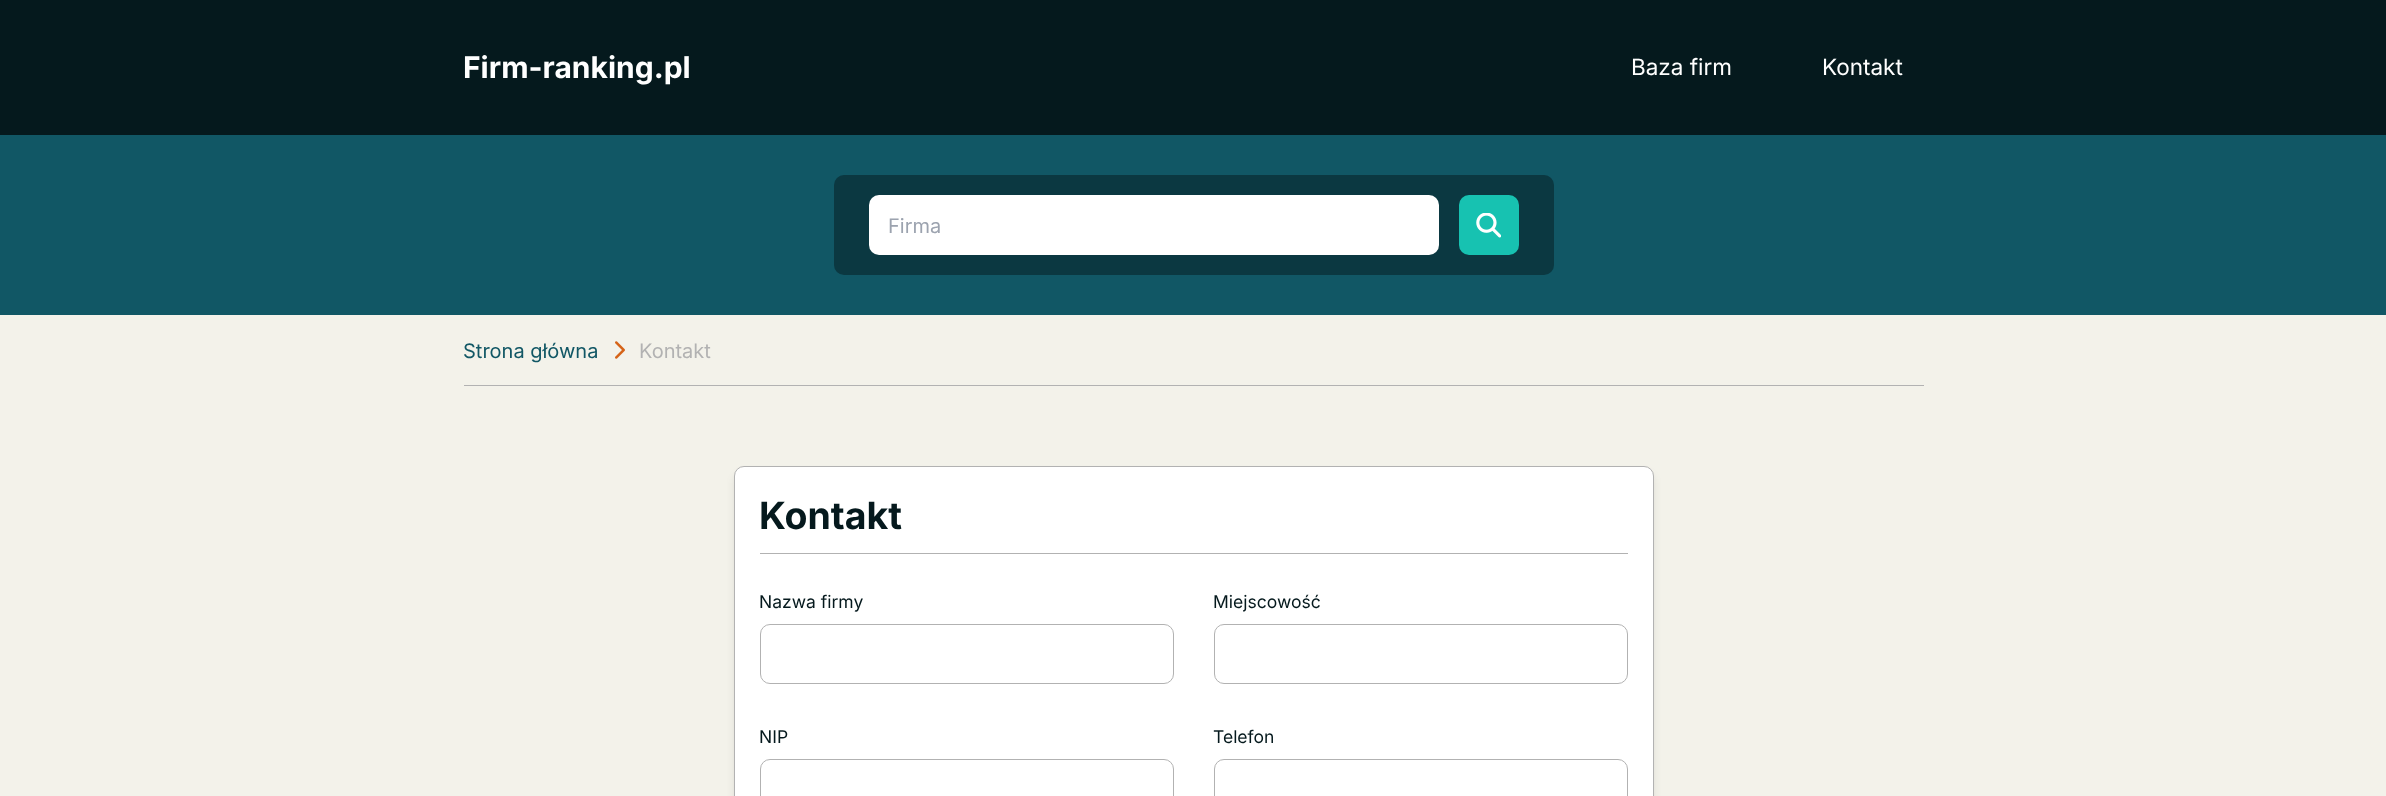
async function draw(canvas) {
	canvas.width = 2386;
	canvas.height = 796;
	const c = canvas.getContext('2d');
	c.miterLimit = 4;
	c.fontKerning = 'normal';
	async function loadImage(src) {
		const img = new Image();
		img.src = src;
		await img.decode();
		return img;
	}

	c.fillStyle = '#f3f2ea';
	c.fillRect(0, 0, 2386, 796);
	c.fillStyle = '#05191d';
	c.fillRect(0, 0, 2386, 135);
	c.font = 'bold 30px Inter';
	c.fillStyle = '#fff';
	c.fillText('Firm-ranking.pl', 463, 78);
	c.font = '22.5px Inter';
	c.fillText('Baza firm', 1631, 75);
	c.fillText('Kontakt', 1822, 75);
	c.fillStyle = '#115765';
	c.fillRect(0, 135, 2386, 180);
	c.fillStyle = '#0b3841';
	c.beginPath();
	c.roundRect(834, 175, 720, 100, 10);
	c.fill();
	c.fillStyle = '#fff';
	c.beginPath();
	c.roundRect(869, 195, 570, 60, 10);
	c.fill();
	c.font = '20px Inter';
	c.fillStyle = '#9ca3af';
	c.fillText('Firma', 888, 233);
	c.fillStyle = '#17c2b1';
	c.beginPath();
	c.roundRect(1459, 195, 60, 60, 10);
	c.fill();
	c.drawImage(await loadImage('img1.png'), 1476, 213, 25, 25);
	c.fillStyle = '#b2b2b2';
	c.fillRect(464, 385, 1460, 1);
	c.fillStyle = '#115765';
	c.fillText('Strona główna', 463, 358);
	c.drawImage(await loadImage('img2.png'), 615, 341, 10, 18);
	c.fillStyle = '#b2b2b2';
	c.fillText('Kontakt', 639, 358);
	c.fillStyle = '#0000001a';
	c.filter = 'blur(4px)';
	c.beginPath();
	c.roundRect(735, 473, 918, 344, 9);
	c.fill();
	c.filter = 'none';
	c.fillStyle = '#fff';
	c.beginPath();
	c.roundRect(734.5, 466.5, 919, 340, 9.5);
	c.fill();
	c.strokeStyle = '#b2b2b2';
	c.stroke();
	c.fillStyle = '#b2b2b2';
	c.fillRect(760, 553, 868, 1);
	c.font = 'bold 37.5px Inter';
	c.fillStyle = '#05191d';
	c.fillText('Kontakt', 759, 529);
	c.font = '17.5px Inter';
	c.fillText('Nazwa firmy', 759, 608);
	c.beginPath();
	c.roundRect(760.5, 624.5, 413, 59, 9.5);
	c.stroke();
	c.fillText('Miejscowość', 1213, 608);
	c.beginPath();
	c.roundRect(1214.5, 624.5, 413, 59, 9.5);
	c.stroke();
	c.fillText('NIP', 759, 743);
	c.beginPath();
	c.roundRect(760.5, 759.5, 413, 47, 9.5);
	c.stroke();
	c.fillText('Telefon', 1213, 743);
	c.beginPath();
	c.roundRect(1214.5, 759.5, 413, 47, 9.5);
	c.stroke();
}

draw(document.querySelector('canvas'));
